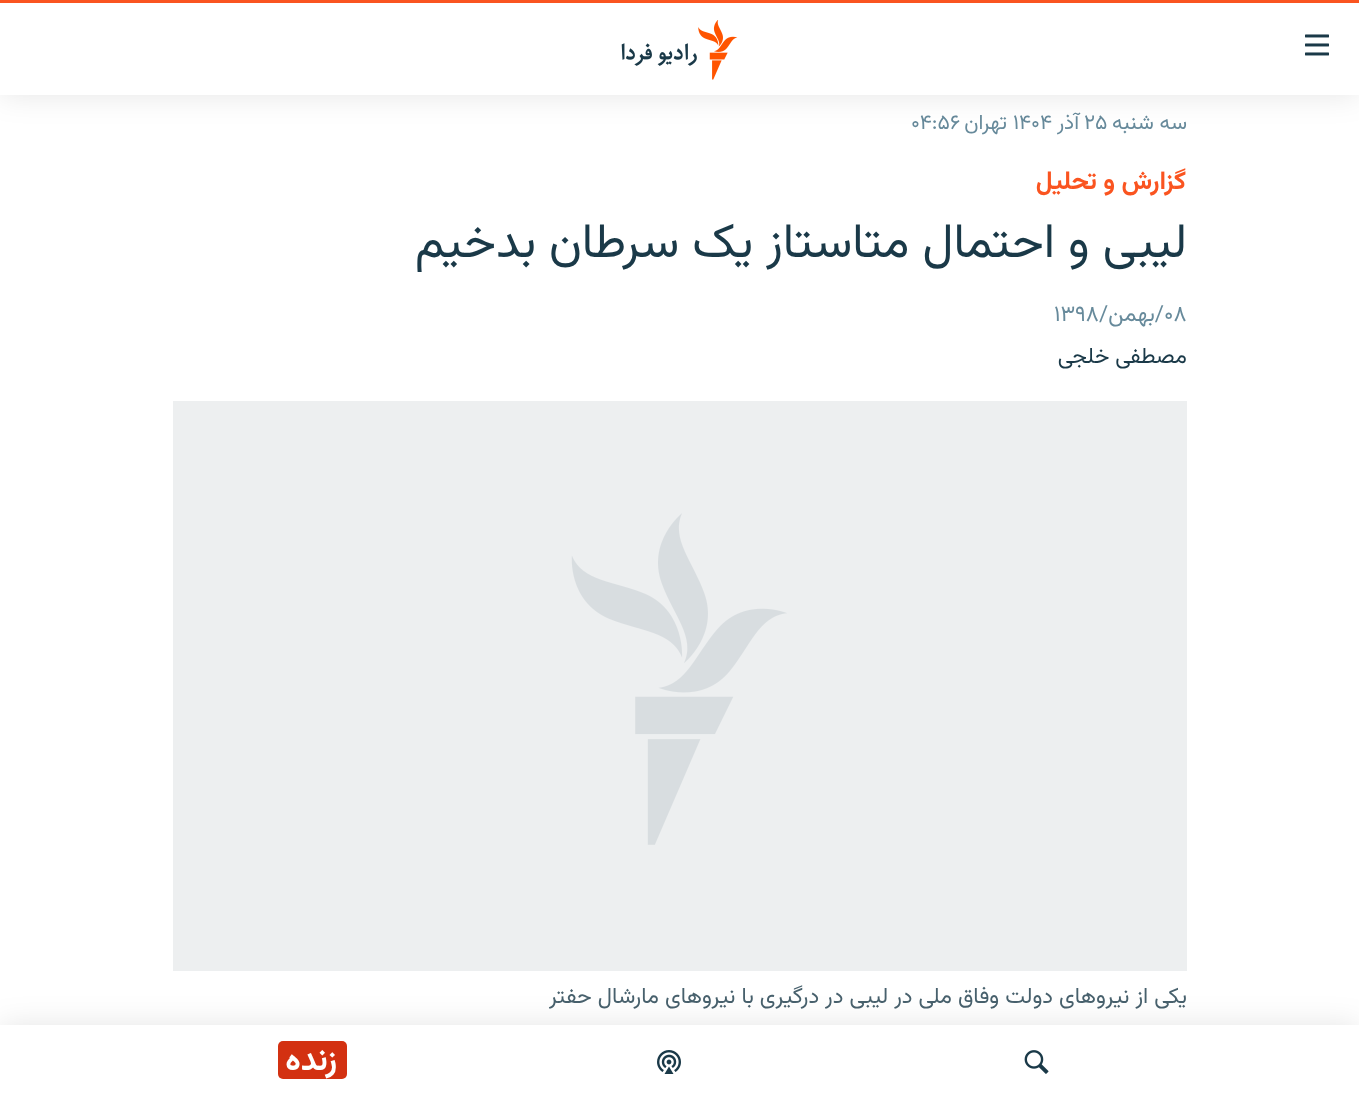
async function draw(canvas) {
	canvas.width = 1359;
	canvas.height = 1099;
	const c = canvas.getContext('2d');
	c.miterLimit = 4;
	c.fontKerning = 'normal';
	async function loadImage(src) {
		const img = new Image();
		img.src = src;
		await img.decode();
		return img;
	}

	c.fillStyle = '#fff';
	c.fillRect(0, 0, 1359, 1099);
	c.direction = 'rtl';
	c.font = '21px Vazirmatn';
	c.fillStyle = '#678a9b';
	c.fillText('سه شنبه', 1187, 129);
	c.direction = 'ltr';
	c.fillText('۲۵', 1084, 129);
	c.direction = 'rtl';
	c.fillText('آذر', 1079, 129);
	c.direction = 'ltr';
	c.fillText('۱۴۰۴', 1013, 129);
	c.direction = 'rtl';
	c.fillText('تهران', 1007, 129);
	c.direction = 'ltr';
	c.fillText('۰۴:۵۶', 911, 129);
	c.direction = 'rtl';
	c.font = 'bold 25.5px Vazirmatn';
	c.fillStyle = '#fa5420';
	c.fillText('گزارش و تحلیل', 1186, 189);
	c.font = '48.5px Vazirmatn';
	c.fillStyle = '#1a3948';
	c.fillText('لیبی و احتمال متاستاز یک سرطان بدخیم', 1187, 257);
	c.direction = 'ltr';
	c.font = '22.3px Vazirmatn';
	c.fillStyle = '#678a9b';
	c.fillText('۰۸', 1164, 321);
	c.direction = 'rtl';
	c.fillText('/بهمن/', 1164, 321);
	c.direction = 'ltr';
	c.fillText('۱۳۹۸', 1054, 321);
	c.direction = 'rtl';
	c.fillStyle = '#1a3948';
	c.fillText('مصطفی خلجی', 1187, 363);
	c.fillStyle = '#edeff0';
	c.fillRect(173, 401, 1014, 570);
	c.drawImage(await loadImage('img1.png'), 571, 513, 216, 332);
	c.fillStyle = '#48616d';
	c.fillText('یکی از نیروهای دولت وفاق ملی در لیبی در درگیری با نیروهای مارشال حفتر', 1187, 1003);
	c.fillStyle = '#0000001a';
	c.filter = 'blur(15px)';
	c.beginPath();
	c.rect(0, 0, 1359, 95);
	c.fill();
	c.filter = 'none';
	c.fillStyle = '#fff';
	c.fillRect(0, 3, 1359, 92);
	c.fillStyle = '#fa5420';
	c.fillRect(0, 0, 1359, 3);
	c.drawImage(await loadImage('img2.png'), 1305, 34, 24, 22);
	c.drawImage(await loadImage('img3.png'), 621, 20, 117, 60);
	c.fillStyle = '#0000001a';
	c.filter = 'blur(15px)';
	c.beginPath();
	c.rect(0, 1025, 1359, 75);
	c.fill();
	c.filter = 'none';
	c.fillStyle = '#fff';
	c.fillRect(0, 1025, 1359, 74);
	c.drawImage(await loadImage('img4.png'), 1024, 1050, 25, 24);
	c.drawImage(await loadImage('img5.png'), 657, 1050, 24, 24);
	c.fillStyle = '#d33111';
	c.beginPath();
	c.roundRect(278, 1041, 69, 38, 5);
	c.fill();
	c.font = 'bold 32px Vazirmatn';
	c.fillStyle = '#fff';
	c.fillText('زنده', 337, 1070);
}

draw(document.querySelector('canvas'));
